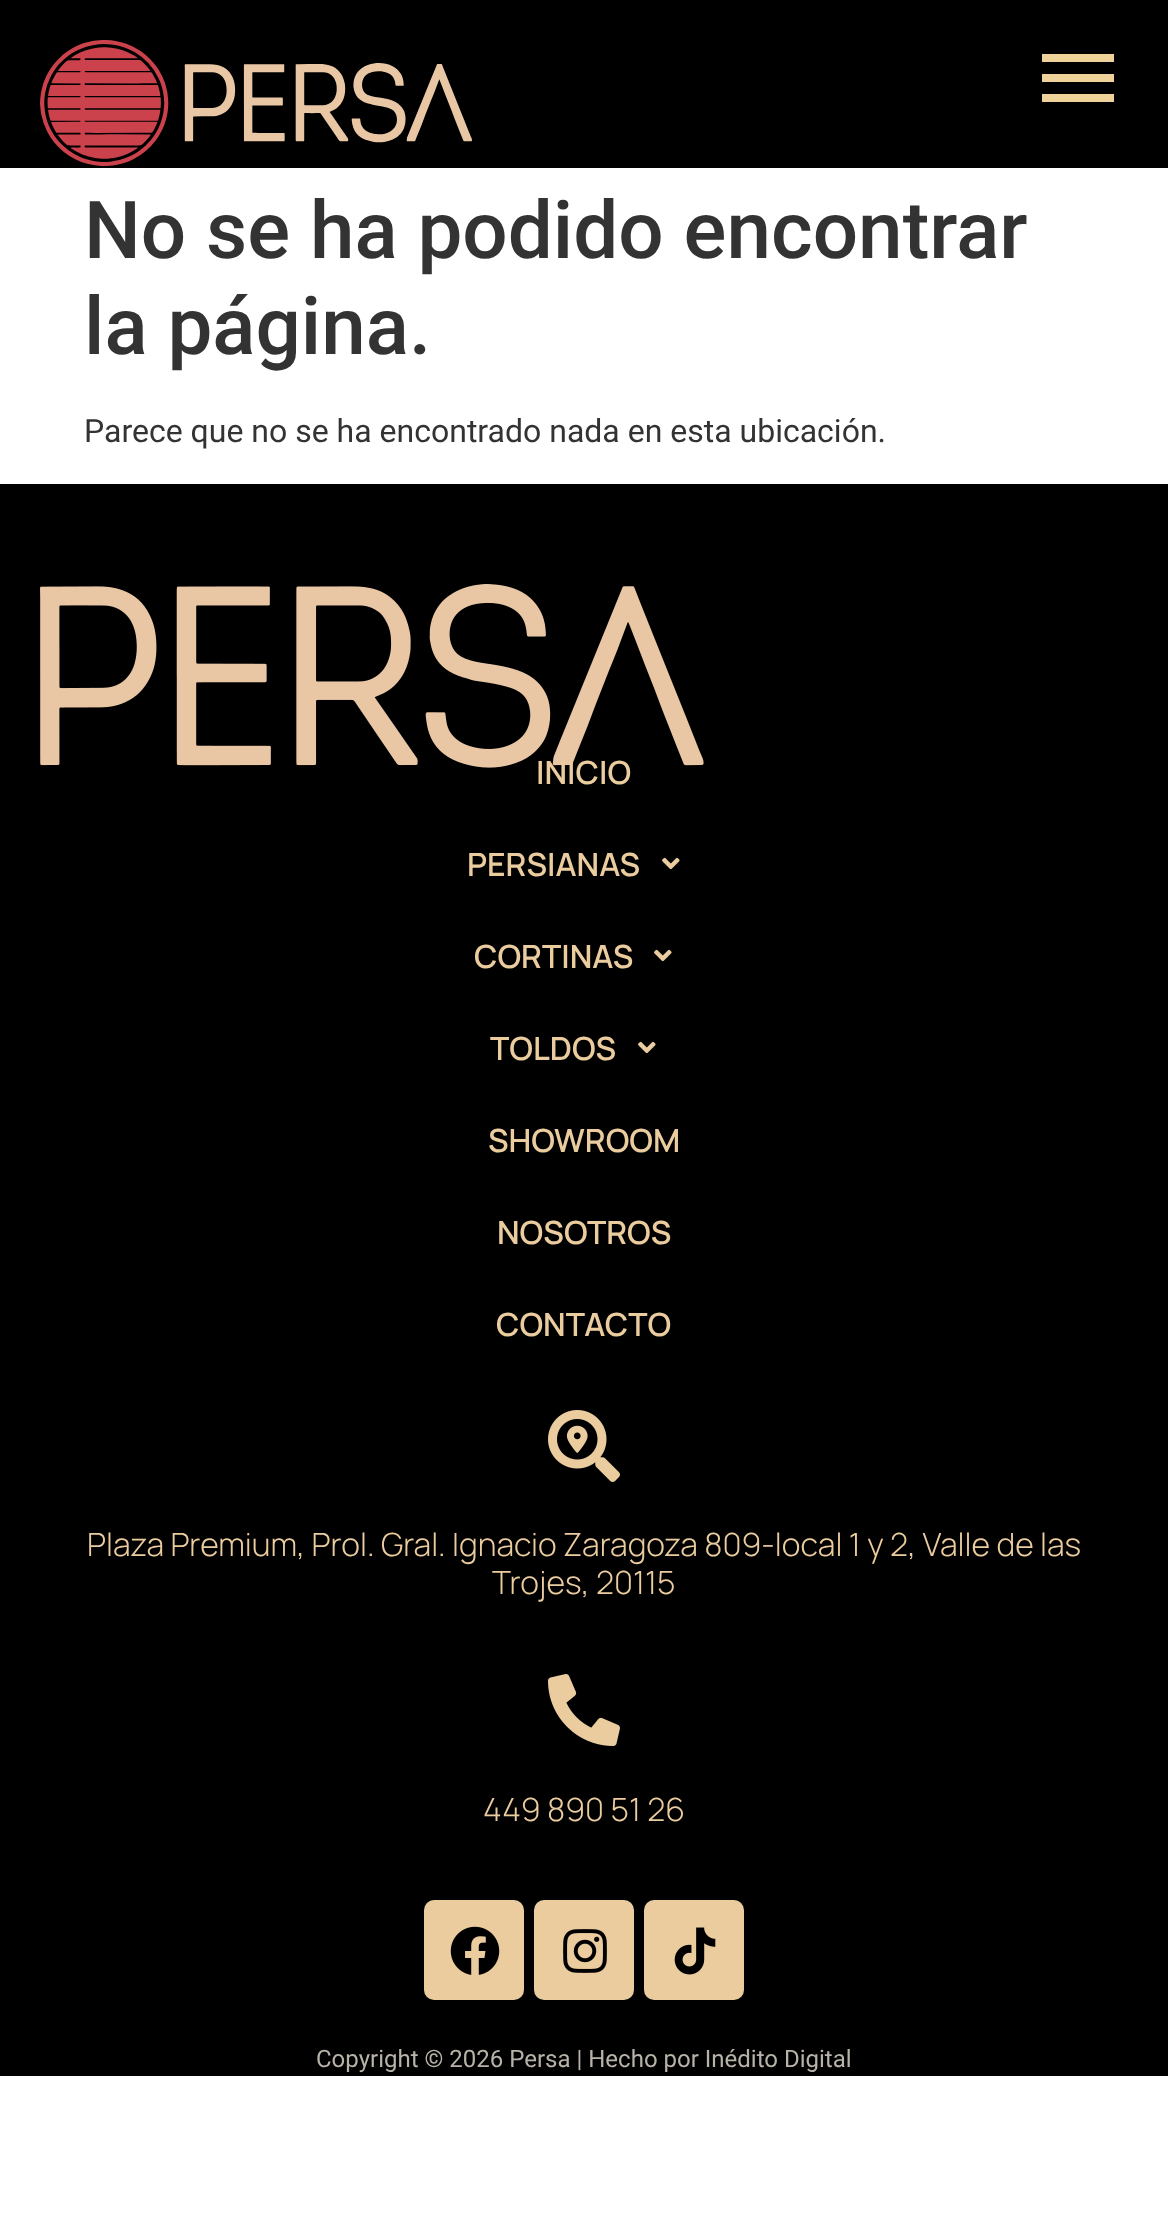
async function draw(canvas) {
	canvas.width = 1168;
	canvas.height = 2218;
	const c = canvas.getContext('2d');
	c.miterLimit = 4;
	c.fontKerning = 'normal';
	async function loadImage(src) {
		const img = new Image();
		img.src = src;
		await img.decode();
		return img;
	}

	c.fillStyle = '#fff';
	c.fillRect(0, 0, 1168, 2218);
	c.fillStyle = '#000';
	c.fillRect(0, 0, 1168, 168);
	c.drawImage(await loadImage('img1.png'), 40, 40, 432, 126);
	for (const [x, y, w, h, color] of [
		[1042, 54, 72, 8, '#eed299'],
		[1042, 74, 72, 8, '#eed299'],
		[1042, 94, 72, 8, '#eed299'],
	]) {
		c.fillStyle = color;
		c.fillRect(x, y, w, h);
	}
	c.font = '500 80px Roboto';
	c.fillStyle = '#333';
	c.fillText('No se ha podido encontrar', 84, 258);
	c.fillText('la página.', 84, 354);
	c.font = '32px Roboto';
	c.fillText('Parece que no se ha encontrado nada en esta ubicación.', 84, 442);
	c.fillStyle = '#000';
	c.fillRect(0, 484, 1168, 1592);
	c.drawImage(await loadImage('img2.png'), 40, 584, 664, 184);
	c.font = '600 32px Manrope';
	c.fillStyle = '#ebcc9f';
	c.fillText('INICIO', 536, 784);
	c.fillText('PERSIANAS', 467, 876);
	c.drawImage(await loadImage('img3.png'), 662, 857, 18, 13);
	c.fillText('CORTINAS', 474, 968);
	c.drawImage(await loadImage('img3.png'), 654, 949, 18, 13);
	c.fillText('TOLDOS', 490, 1060);
	c.drawImage(await loadImage('img3.png'), 638, 1041, 18, 13);
	for (const [text, x, y] of [
		['SHOWROOM', 488, 1152],
		['NOSOTROS', 497, 1244],
		['CONTACTO', 496, 1336],
	]) {
		c.fillText(text, x, y);
	}
	c.drawImage(await loadImage('img4.png'), 548, 1410, 72, 72);
	c.font = '300 32px Manrope';
	c.fillText('Plaza Premium, Prol. Gral. Ignacio Zaragoza 809-local 1 y 2, Valle de las', 87, 1556);
	c.fillText('Trojes, 20115', 492, 1594);
	c.drawImage(await loadImage('img5.png'), 548, 1674, 72, 72);
	c.fillText('449 890 51 26', 483, 1821);
	c.beginPath();
	c.roundRect(424, 1900, 100, 100, 10);
	c.fill();
	c.drawImage(await loadImage('img6.png'), 450, 1926, 50, 49);
	c.beginPath();
	c.roundRect(534, 1900, 100, 100, 10);
	c.fill();
	c.drawImage(await loadImage('img7.png'), 563, 1929, 44, 44);
	c.beginPath();
	c.roundRect(644, 1900, 100, 100, 10);
	c.fill();
	c.drawImage(await loadImage('img8.png'), 674, 1927, 42, 48);
	c.font = '24px Roboto';
	c.fillStyle = '#b8b3a8';
	c.fillText('Copyright © 2026 Persa | Hecho por Inédito Digital', 316, 2067);
}

draw(document.querySelector('canvas'));
